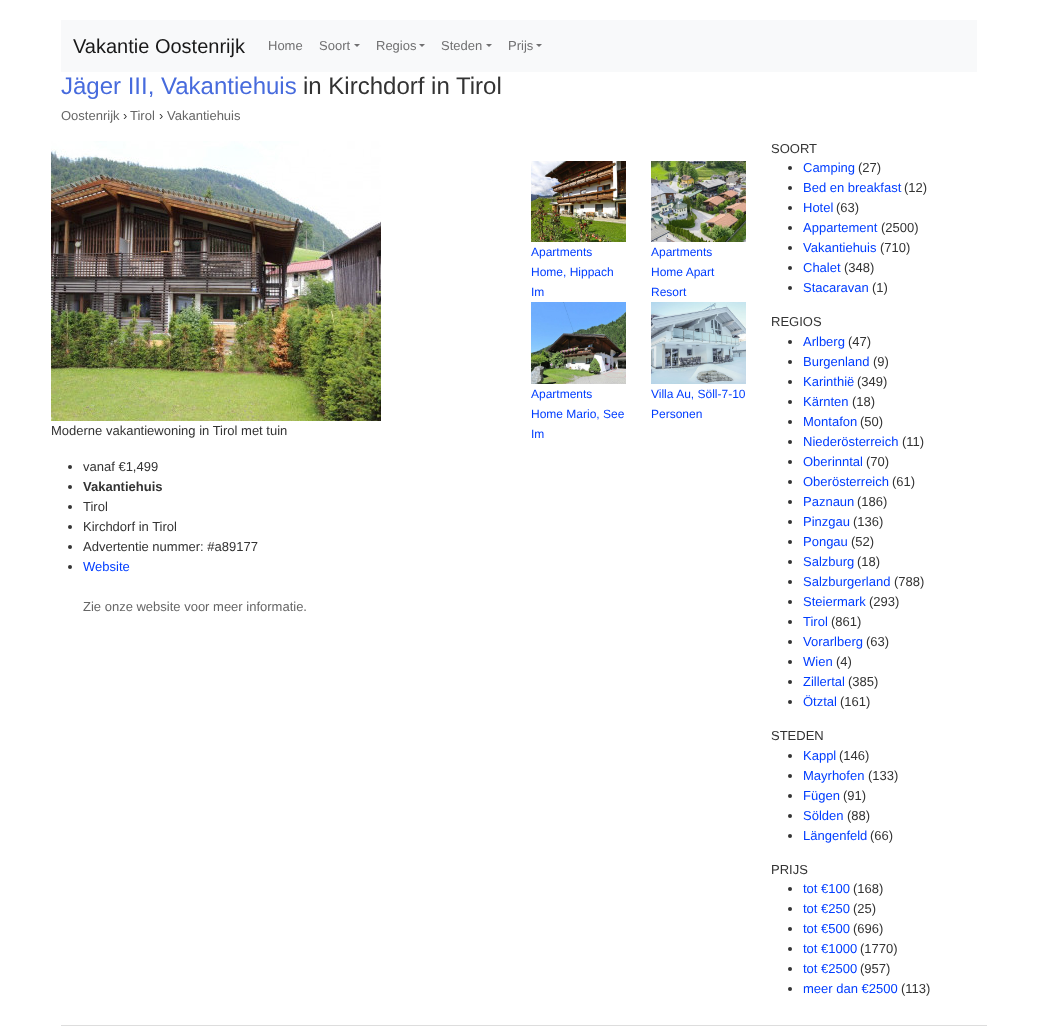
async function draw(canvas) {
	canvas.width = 1037;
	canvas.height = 1033;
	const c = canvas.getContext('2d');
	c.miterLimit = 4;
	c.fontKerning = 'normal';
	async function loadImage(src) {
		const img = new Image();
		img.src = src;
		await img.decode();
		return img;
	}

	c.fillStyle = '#fff';
	c.fillRect(0, 0, 1037, 1033);
	c.fillStyle = '#f8f9fa';
	c.fillRect(61, 20, 916, 52);
	c.font = '20px Liberation Sans';
	c.fillStyle = '#191919';
	c.fillText('Vakantie Oostenrijk', 73, 53);
	c.font = '13px Liberation Sans';
	c.fillStyle = '#707071';
	c.fillText('Home', 268, 50);
	c.fillText('Soort', 319, 50);
	c.beginPath();
	c.moveTo(354, 44);
	c.lineTo(360, 44);
	c.lineTo(357, 47);
	c.closePath();
	c.fill();
	c.fillText('Regios', 376, 50);
	c.beginPath();
	c.moveTo(419, 44);
	c.lineTo(425, 44);
	c.lineTo(422, 47);
	c.closePath();
	c.fill();
	c.fillText('Steden', 441, 50);
	c.beginPath();
	c.moveTo(486, 44);
	c.lineTo(492, 44);
	c.lineTo(489, 47);
	c.closePath();
	c.fill();
	c.fillText('Prijs', 508, 50);
	c.beginPath();
	c.moveTo(536, 44);
	c.lineTo(542, 44);
	c.lineTo(539, 47);
	c.closePath();
	c.fill();
	c.font = '24px Liberation Sans';
	c.fillStyle = '#476bdd';
	c.fillText('Jäger III, Vakantiehuis', 61, 94);
	c.fillStyle = '#333';
	c.fillText('in Kirchdorf in Tirol', 303, 94);
	c.font = '13px Liberation Sans';
	c.fillStyle = '#666';
	c.fillText('Oostenrijk', 61, 120);
	c.fillStyle = '#333';
	c.fillText('›', 123, 120);
	c.fillStyle = '#666';
	c.fillText('Tirol', 130, 120);
	c.fillStyle = '#333';
	c.fillText('›', 159, 120);
	c.fillStyle = '#666';
	c.fillText('Vakantiehuis', 167, 120);
	c.drawImage(await loadImage('img1.png'), 531, 161, 95, 81);
	c.font = '12px Liberation Sans';
	c.fillStyle = '#003dff';
	for (const [text, x, y] of [
		['Apartments', 531, 256],
		['Home, Hippach', 531, 276],
		['Im', 531, 296],
	]) {
		c.fillText(text, x, y);
	}
	c.drawImage(await loadImage('img2.png'), 651, 161, 95, 81);
	for (const [text, x, y] of [
		['Apartments', 651, 256],
		['Home Apart', 651, 276],
		['Resort', 651, 296],
	]) {
		c.fillText(text, x, y);
	}
	c.drawImage(await loadImage('img3.png'), 531, 302, 95, 82);
	for (const [text, x, y] of [
		['Apartments', 531, 398],
		['Home Mario, See', 531, 418],
		['Im', 531, 438],
	]) {
		c.fillText(text, x, y);
	}
	c.drawImage(await loadImage('img4.png'), 651, 302, 95, 82);
	c.fillText('Villa Au, Söll-7-10', 651, 398);
	c.fillText('Personen', 651, 418);
	c.drawImage(await loadImage('img5.png'), 51, 141, 330, 280);
	c.font = '13px Liberation Sans';
	c.fillStyle = '#333';
	c.fillText('Moderne vakantiewoning in Tirol met tuin', 51, 435);
	c.beginPath();
	c.arc(70, 467, 2, 0, 2 * Math.PI);
	c.fill();
	c.fillText('vanaf €1,499', 83, 471);
	c.beginPath();
	c.arc(70, 487, 2, 0, 2 * Math.PI);
	c.fill();
	c.font = 'bold 13px Liberation Sans';
	c.fillText('Vakantiehuis', 83, 491);
	c.beginPath();
	c.arc(70, 507, 2, 0, 2 * Math.PI);
	c.fill();
	c.font = '13px Liberation Sans';
	c.fillText('Tirol', 83, 511);
	c.beginPath();
	c.arc(70, 527, 2, 0, 2 * Math.PI);
	c.fill();
	c.fillText('Kirchdorf in Tirol', 83, 531);
	c.beginPath();
	c.arc(70, 547, 2, 0, 2 * Math.PI);
	c.fill();
	c.fillText('Advertentie nummer: #a89177', 83, 551);
	c.beginPath();
	c.arc(70, 567, 2, 0, 2 * Math.PI);
	c.fill();
	c.fillStyle = '#003dff';
	c.fillText('Website', 83, 571);
	c.fillStyle = '#666';
	c.fillText('Zie onze website voor meer informatie.', 83, 611);
	c.fillStyle = '#333';
	c.fillText('SOORT', 771, 153);
	c.beginPath();
	c.arc(790, 168, 2, 0, 2 * Math.PI);
	c.fill();
	c.fillStyle = '#003dff';
	c.fillText('Camping', 803, 172);
	c.fillStyle = '#333';
	c.fillText('(27)', 858, 172);
	c.beginPath();
	c.arc(790, 188, 2, 0, 2 * Math.PI);
	c.fill();
	c.fillStyle = '#003dff';
	c.fillText('Bed en breakfast', 803, 192);
	c.fillStyle = '#333';
	c.fillText('(12)', 904, 192);
	c.beginPath();
	c.arc(790, 208, 2, 0, 2 * Math.PI);
	c.fill();
	c.fillStyle = '#003dff';
	c.fillText('Hotel', 803, 212);
	c.fillStyle = '#333';
	c.fillText('(63)', 836, 212);
	c.beginPath();
	c.arc(790, 228, 2, 0, 2 * Math.PI);
	c.fill();
	c.fillStyle = '#003dff';
	c.fillText('Appartement', 803, 232);
	c.fillStyle = '#333';
	c.fillText('(2500)', 881, 232);
	c.beginPath();
	c.arc(790, 248, 2, 0, 2 * Math.PI);
	c.fill();
	c.fillStyle = '#003dff';
	c.fillText('Vakantiehuis', 803, 252);
	c.fillStyle = '#333';
	c.fillText('(710)', 880, 252);
	c.beginPath();
	c.arc(790, 268, 2, 0, 2 * Math.PI);
	c.fill();
	c.fillStyle = '#003dff';
	c.fillText('Chalet', 803, 272);
	c.fillStyle = '#333';
	c.fillText('(348)', 844, 272);
	c.beginPath();
	c.arc(790, 288, 2, 0, 2 * Math.PI);
	c.fill();
	c.fillStyle = '#003dff';
	c.fillText('Stacaravan', 803, 292);
	c.fillStyle = '#333';
	c.fillText('(1)', 872, 292);
	c.fillText('REGIOS', 771, 326);
	c.beginPath();
	c.arc(790, 342, 2, 0, 2 * Math.PI);
	c.fill();
	c.fillStyle = '#003dff';
	c.fillText('Arlberg', 803, 346);
	c.fillStyle = '#333';
	c.fillText('(47)', 848, 346);
	c.beginPath();
	c.arc(790, 362, 2, 0, 2 * Math.PI);
	c.fill();
	c.fillStyle = '#003dff';
	c.fillText('Burgenland', 803, 366);
	c.fillStyle = '#333';
	c.fillText('(9)', 873, 366);
	c.beginPath();
	c.arc(790, 382, 2, 0, 2 * Math.PI);
	c.fill();
	c.fillStyle = '#003dff';
	c.fillText('Karinthië', 803, 386);
	c.fillStyle = '#333';
	c.fillText('(349)', 857, 386);
	c.beginPath();
	c.arc(790, 402, 2, 0, 2 * Math.PI);
	c.fill();
	c.fillStyle = '#003dff';
	c.fillText('Kärnten', 803, 406);
	c.fillStyle = '#333';
	c.fillText('(18)', 852, 406);
	c.beginPath();
	c.arc(790, 422, 2, 0, 2 * Math.PI);
	c.fill();
	c.fillStyle = '#003dff';
	c.fillText('Montafon', 803, 426);
	c.fillStyle = '#333';
	c.fillText('(50)', 860, 426);
	c.beginPath();
	c.arc(790, 442, 2, 0, 2 * Math.PI);
	c.fill();
	c.fillStyle = '#003dff';
	c.fillText('Niederösterreich', 803, 446);
	c.fillStyle = '#333';
	c.fillText('(11)', 902, 446);
	c.beginPath();
	c.arc(790, 462, 2, 0, 2 * Math.PI);
	c.fill();
	c.fillStyle = '#003dff';
	c.fillText('Oberinntal', 803, 466);
	c.fillStyle = '#333';
	c.fillText('(70)', 866, 466);
	c.beginPath();
	c.arc(790, 482, 2, 0, 2 * Math.PI);
	c.fill();
	c.fillStyle = '#003dff';
	c.fillText('Oberösterreich', 803, 486);
	c.fillStyle = '#333';
	c.fillText('(61)', 892, 486);
	c.beginPath();
	c.arc(790, 502, 2, 0, 2 * Math.PI);
	c.fill();
	c.fillStyle = '#003dff';
	c.fillText('Paznaun', 803, 506);
	c.fillStyle = '#333';
	c.fillText('(186)', 857, 506);
	c.beginPath();
	c.arc(790, 522, 2, 0, 2 * Math.PI);
	c.fill();
	c.fillStyle = '#003dff';
	c.fillText('Pinzgau', 803, 526);
	c.fillStyle = '#333';
	c.fillText('(136)', 853, 526);
	c.beginPath();
	c.arc(790, 542, 2, 0, 2 * Math.PI);
	c.fill();
	c.fillStyle = '#003dff';
	c.fillText('Pongau', 803, 546);
	c.fillStyle = '#333';
	c.fillText('(52)', 851, 546);
	c.beginPath();
	c.arc(790, 562, 2, 0, 2 * Math.PI);
	c.fill();
	c.fillStyle = '#003dff';
	c.fillText('Salzburg', 803, 566);
	c.fillStyle = '#333';
	c.fillText('(18)', 857, 566);
	c.beginPath();
	c.arc(790, 582, 2, 0, 2 * Math.PI);
	c.fill();
	c.fillStyle = '#003dff';
	c.fillText('Salzburgerland', 803, 586);
	c.fillStyle = '#333';
	c.fillText('(788)', 894, 586);
	c.beginPath();
	c.arc(790, 602, 2, 0, 2 * Math.PI);
	c.fill();
	c.fillStyle = '#003dff';
	c.fillText('Steiermark', 803, 606);
	c.fillStyle = '#333';
	c.fillText('(293)', 869, 606);
	c.beginPath();
	c.arc(790, 622, 2, 0, 2 * Math.PI);
	c.fill();
	c.fillStyle = '#003dff';
	c.fillText('Tirol', 803, 626);
	c.fillStyle = '#333';
	c.fillText('(861)', 831, 626);
	c.beginPath();
	c.arc(790, 642, 2, 0, 2 * Math.PI);
	c.fill();
	c.fillStyle = '#003dff';
	c.fillText('Vorarlberg', 803, 646);
	c.fillStyle = '#333';
	c.fillText('(63)', 866, 646);
	c.beginPath();
	c.arc(790, 662, 2, 0, 2 * Math.PI);
	c.fill();
	c.fillStyle = '#003dff';
	c.fillText('Wien', 803, 666);
	c.fillStyle = '#333';
	c.fillText('(4)', 836, 666);
	c.beginPath();
	c.arc(790, 682, 2, 0, 2 * Math.PI);
	c.fill();
	c.fillStyle = '#003dff';
	c.fillText('Zillertal', 803, 686);
	c.fillStyle = '#333';
	c.fillText('(385)', 848, 686);
	c.beginPath();
	c.arc(790, 702, 2, 0, 2 * Math.PI);
	c.fill();
	c.fillStyle = '#003dff';
	c.fillText('Ötztal', 803, 706);
	c.fillStyle = '#333';
	c.fillText('(161)', 840, 706);
	c.fillText('STEDEN', 771, 740);
	c.beginPath();
	c.arc(790, 756, 2, 0, 2 * Math.PI);
	c.fill();
	c.fillStyle = '#003dff';
	c.fillText('Kappl', 803, 760);
	c.fillStyle = '#333';
	c.fillText('(146)', 839, 760);
	c.beginPath();
	c.arc(790, 776, 2, 0, 2 * Math.PI);
	c.fill();
	c.fillStyle = '#003dff';
	c.fillText('Mayrhofen', 803, 780);
	c.fillStyle = '#333';
	c.fillText('(133)', 868, 780);
	c.beginPath();
	c.arc(790, 796, 2, 0, 2 * Math.PI);
	c.fill();
	c.fillStyle = '#003dff';
	c.fillText('Fügen', 803, 800);
	c.fillStyle = '#333';
	c.fillText('(91)', 843, 800);
	c.beginPath();
	c.arc(790, 816, 2, 0, 2 * Math.PI);
	c.fill();
	c.fillStyle = '#003dff';
	c.fillText('Sölden', 803, 820);
	c.fillStyle = '#333';
	c.fillText('(88)', 847, 820);
	c.beginPath();
	c.arc(790, 836, 2, 0, 2 * Math.PI);
	c.fill();
	c.fillStyle = '#003dff';
	c.fillText('Längenfeld', 803, 840);
	c.fillStyle = '#333';
	c.fillText('(66)', 870, 840);
	c.fillText('PRIJS', 771, 874);
	c.beginPath();
	c.arc(790, 889, 2, 0, 2 * Math.PI);
	c.fill();
	c.fillStyle = '#003dff';
	c.fillText('tot €100', 803, 893);
	c.fillStyle = '#333';
	c.fillText('(168)', 853, 893);
	c.beginPath();
	c.arc(790, 909, 2, 0, 2 * Math.PI);
	c.fill();
	c.fillStyle = '#003dff';
	c.fillText('tot €250', 803, 913);
	c.fillStyle = '#333';
	c.fillText('(25)', 853, 913);
	c.beginPath();
	c.arc(790, 929, 2, 0, 2 * Math.PI);
	c.fill();
	c.fillStyle = '#003dff';
	c.fillText('tot €500', 803, 933);
	c.fillStyle = '#333';
	c.fillText('(696)', 853, 933);
	c.beginPath();
	c.arc(790, 949, 2, 0, 2 * Math.PI);
	c.fill();
	c.fillStyle = '#003dff';
	c.fillText('tot €1000', 803, 953);
	c.fillStyle = '#333';
	c.fillText('(1770)', 860, 953);
	c.beginPath();
	c.arc(790, 969, 2, 0, 2 * Math.PI);
	c.fill();
	c.fillStyle = '#003dff';
	c.fillText('tot €2500', 803, 973);
	c.fillStyle = '#333';
	c.fillText('(957)', 860, 973);
	c.beginPath();
	c.arc(790, 989, 2, 0, 2 * Math.PI);
	c.fill();
	c.fillStyle = '#003dff';
	c.fillText('meer dan €2500', 803, 993);
	c.fillStyle = '#333';
	c.fillText('(113)', 901, 993);
	c.fillStyle = '#ddd';
	c.fillRect(61, 1025, 926, 1);
}

draw(document.querySelector('canvas'));
